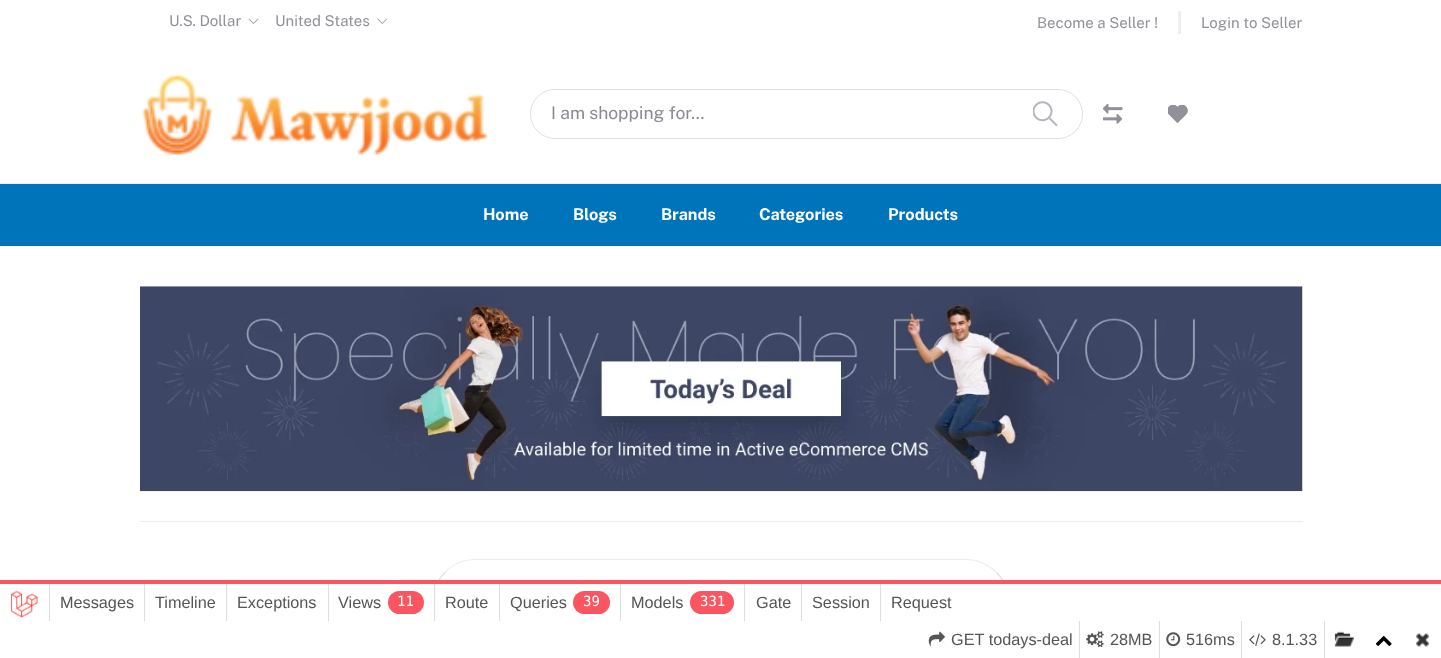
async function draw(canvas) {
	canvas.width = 1441;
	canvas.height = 658;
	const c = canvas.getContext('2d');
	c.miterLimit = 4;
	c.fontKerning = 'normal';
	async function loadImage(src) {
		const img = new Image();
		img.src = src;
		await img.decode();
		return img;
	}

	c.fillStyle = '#fff';
	c.fillRect(0, 0, 1441, 658);
	c.font = '15px Public Sans';
	c.fillStyle = '#919199';
	c.fillText('U.S. Dollar', 169, 26);
	c.drawImage(await loadImage('img1.png'), 248, 18, 11, 6);
	c.fillText('United States', 275, 26);
	c.drawImage(await loadImage('img2.png'), 377, 18, 10, 6);
	c.fillStyle = '#ededf2';
	c.fillRect(1178, 11, 3, 23);
	c.fillStyle = '#919199';
	c.fillText('Become a Seller !', 1037, 28);
	c.fillText('Login to Seller', 1201, 28);
	c.fillStyle = '#ededf2';
	c.fillRect(0, 183, 1441, 1);
	c.drawImage(await loadImage('img3.png'), 142, 74, 346, 81);
	c.beginPath();
	c.roundRect(530.5, 89.5, 552, 49, 24.5);
	c.strokeStyle = '#dfdfe6';
	c.stroke();
	c.font = '17.5px Public Sans';
	c.fillStyle = '#898b92';
	c.fillText('I am shopping for...', 551, 119);
	c.drawImage(await loadImage('img4.png'), 1033, 101, 25, 25);
	c.drawImage(await loadImage('img5.png'), 1103, 104, 20, 20);
	c.drawImage(await loadImage('img6.png'), 1168, 105, 20, 18);
	c.fillStyle = '#0074ba';
	c.fillRect(0, 184, 1441, 62);
	c.font = 'bold 16.25px Public Sans';
	c.fillStyle = '#fff';
	for (const [text, x, y] of [
		['Home', 483, 220],
		['Blogs', 573, 220],
		['Brands', 661, 220],
		['Categories', 759, 220],
		['Products', 888, 220],
	]) {
		c.fillText(text, x, y);
	}
	c.drawImage(await loadImage('img7.png'), 140, 286, 1163, 206);
	c.fillStyle = '#ededf2';
	c.fillRect(140, 521, 1163, 1);
	c.beginPath();
	c.moveTo(445, 572.5);
	c.bezierCurveTo(453, 564, 464.5, 559.5, 476, 559.5);
	c.lineTo(965, 559.5);
	c.bezierCurveTo(977, 559.5, 988, 564, 996.5, 572.5);
	c.strokeStyle = '#ededf2';
	c.lineWidth = 1.2;
	c.stroke();
	c.beginPath();
	c.moveTo(996.5, 572.5);
	c.bezierCurveTo(1007, 583, 1011.5, 598, 1008.5, 612.5);
	c.bezierCurveTo(1004.5, 633, 986, 648, 965, 648);
	c.lineTo(476, 648);
	c.bezierCurveTo(455.5, 648, 437, 633, 432.5, 612.5);
	c.bezierCurveTo(430, 598, 434.5, 583, 445, 572.5);
	c.strokeStyle = '#dfdfe6';
	c.stroke();
	c.fillStyle = '#fff';
	c.fillRect(431, 584, 579, 65);
	c.fillStyle = '#fa5661';
	c.fillRect(0, 580, 1441, 4);
	c.drawImage(await loadImage('img8.png'), 11, 590, 27, 28);
	c.fillStyle = '#ddd';
	c.fillRect(49, 584, 1, 37);
	c.font = '16.25px Liberation Sans';
	c.fillStyle = '#555';
	c.fillText('Messages', 60, 608);
	c.fillStyle = '#ddd';
	c.fillRect(144, 584, 1, 37);
	c.fillStyle = '#555';
	c.fillText('Timeline', 155, 608);
	c.fillStyle = '#ddd';
	c.fillRect(226, 584, 1, 37);
	c.fillStyle = '#555';
	c.fillText('Exceptions', 237, 608);
	c.fillStyle = '#ddd';
	c.fillRect(328, 584, 1, 37);
	c.fillStyle = '#555';
	c.fillText('Views', 338, 608);
	c.fillStyle = '#fa5661';
	c.beginPath();
	c.roundRect(388, 591, 36, 23, 11.5);
	c.fill();
	c.font = '14px DejaVu Sans Mono';
	c.fillStyle = '#fff';
	c.fillText('11', 397, 606);
	c.fillStyle = '#ddd';
	c.fillRect(434, 584, 1, 37);
	c.font = '16.25px Liberation Sans';
	c.fillStyle = '#555';
	c.fillText('Route', 445, 608);
	c.fillStyle = '#ddd';
	c.fillRect(499, 584, 1, 37);
	c.fillStyle = '#555';
	c.fillText('Queries', 510, 608);
	c.fillStyle = '#fa5661';
	c.beginPath();
	c.roundRect(573, 591, 37, 23, 11.5);
	c.fill();
	c.font = '14px DejaVu Sans Mono';
	c.fillStyle = '#fff';
	c.fillText('39', 583, 606);
	c.fillStyle = '#ddd';
	c.fillRect(620, 584, 1, 37);
	c.font = '16.25px Liberation Sans';
	c.fillStyle = '#555';
	c.fillText('Models', 631, 608);
	c.fillStyle = '#fa5661';
	c.beginPath();
	c.roundRect(690, 591, 44, 23, 11.5);
	c.fill();
	c.font = '14px DejaVu Sans Mono';
	c.fillStyle = '#fff';
	c.fillText('331', 700, 606);
	c.fillStyle = '#ddd';
	c.fillRect(744, 584, 1, 37);
	c.font = '16.25px Liberation Sans';
	c.fillStyle = '#555';
	c.fillText('Gate', 756, 608);
	c.fillStyle = '#ddd';
	c.fillRect(801, 584, 1, 37);
	c.fillStyle = '#555';
	c.fillText('Session', 812, 608);
	c.fillStyle = '#ddd';
	c.fillRect(880, 584, 1, 37);
	c.fillStyle = '#555';
	c.fillText('Request', 891, 608);
	c.fillStyle = '#ddd';
	c.fillRect(1079, 621, 1, 37);
	c.drawImage(await loadImage('img9.png'), 928, 631, 17, 16);
	c.fillStyle = '#555';
	c.fillText('GET todays-deal', 951, 645);
	c.fillStyle = '#ddd';
	c.fillRect(1159, 621, 1, 37);
	c.drawImage(await loadImage('img10.png'), 1086, 631, 18, 17);
	c.fillStyle = '#555';
	c.fillText('28MB', 1110, 645);
	c.fillStyle = '#ddd';
	c.fillRect(1241, 621, 1, 37);
	c.drawImage(await loadImage('img11.png'), 1166, 632, 15, 15);
	c.fillStyle = '#555';
	c.fillText('516ms', 1186, 645);
	c.fillStyle = '#ddd';
	c.fillRect(1324, 621, 1, 37);
	c.drawImage(await loadImage('img12.png'), 1249, 633, 17, 13);
	c.fillStyle = '#555';
	c.fillText('8.1.33', 1272, 645);
	c.drawImage(await loadImage('img13.png'), 1334, 631, 20, 16);
	c.drawImage(await loadImage('img14.png'), 1375, 636, 17, 10);
	c.drawImage(await loadImage('img15.png'), 1416, 633, 13, 14);
}

draw(document.querySelector('canvas'));
